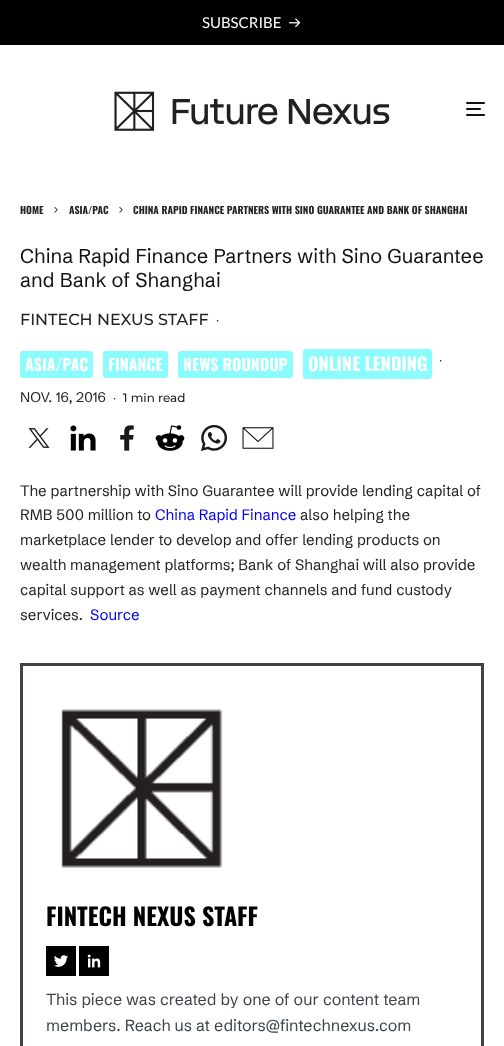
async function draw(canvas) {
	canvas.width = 504;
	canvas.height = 1046;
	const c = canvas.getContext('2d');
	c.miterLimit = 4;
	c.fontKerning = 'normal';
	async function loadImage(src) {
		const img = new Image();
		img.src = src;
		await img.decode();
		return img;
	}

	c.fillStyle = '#fff';
	c.fillRect(0, 0, 504, 1046);
	c.fillStyle = '#000';
	c.fillRect(0, 0, 504, 45);
	c.font = '15px Lato';
	c.fillStyle = '#fff';
	c.fillText('SUBSCRIBE', 202, 28);
	c.drawImage(await loadImage('img1.png'), 288, 18, 13, 10);
	c.drawImage(await loadImage('img2.png'), 114, 91, 276, 40);
	c.fillStyle = '#111';
	c.beginPath();
	c.roundRect(466, 108, 15, 2, 1);
	c.fill();
	c.beginPath();
	c.roundRect(466, 102, 19, 2, 1);
	c.fill();
	c.beginPath();
	c.roundRect(466, 114, 19, 2, 1);
	c.fill();
	c.font = 'bold 10px Oswald';
	c.fillStyle = '#232323';
	c.fillText('HOME', 20, 214);
	c.drawImage(await loadImage('img3.png'), 54, 207, 4, 6);
	c.fillText('ASIA/PAC', 69, 214);
	c.drawImage(await loadImage('img3.png'), 119, 207, 4, 6);
	c.fillText('CHINA RAPID FINANCE PARTNERS WITH SINO GUARANTEE AND BANK OF SHANGHAI', 133, 214);
	c.font = '20px Schibsted Grotesk';
	c.fillStyle = '#111';
	c.fillText('China Rapid Finance Partners with Sino Guarantee', 20, 263);
	c.fillText('and Bank of Shanghai', 20, 287);
	c.font = '500 16px Montserrat';
	c.fillStyle = '#232323';
	c.fillText('FINTECH NEXUS STAFF', 20, 325);
	c.font = '500 12px Montserrat';
	c.fillText('·', 216, 324);
	c.fillStyle = '#8afcfd';
	c.beginPath();
	c.roundRect(20, 351, 73, 27, 3);
	c.fill();
	c.font = 'bold 16px Oswald';
	c.fillStyle = '#fff';
	c.fillText('ASIA/PAC', 25, 371);
	c.fillStyle = '#8afcfd';
	c.beginPath();
	c.roundRect(103, 351, 65, 27, 3);
	c.fill();
	c.fillStyle = '#fff';
	c.fillText('FINANCE', 108, 371);
	c.fillStyle = '#8afcfd';
	c.beginPath();
	c.roundRect(178, 351, 115, 27, 3);
	c.fill();
	c.fillStyle = '#fff';
	c.fillText('NEWS ROUNDUP', 183, 371);
	c.fillStyle = '#8afcfd';
	c.beginPath();
	c.roundRect(303, 349, 129, 30, 3);
	c.fill();
	c.font = 'bold 18px Oswald';
	c.fillStyle = '#fff';
	c.fillText('ONLINE LENDING', 308, 371);
	c.font = '500 12px Montserrat';
	c.fillStyle = '#232323';
	c.fillText('·', 439, 364);
	c.font = '14px Schibsted Grotesk';
	c.fillText('NOV. 16, 2016', 20, 402);
	c.font = '500 12px Montserrat';
	c.fillText('·', 113, 402);
	c.fillText('1 min read', 123, 402);
	c.drawImage(await loadImage('img4.png'), 28, 428, 22, 20);
	c.drawImage(await loadImage('img5.png'), 70, 425, 26, 26);
	c.drawImage(await loadImage('img6.png'), 120, 425, 14, 26);
	c.drawImage(await loadImage('img7.png'), 155, 425, 30, 26);
	c.drawImage(await loadImage('img8.png'), 201, 424, 26, 27);
	c.drawImage(await loadImage('img9.png'), 242, 427, 32, 22);
	c.font = '15px Schibsted Grotesk';
	c.fillText('The partnership with Sino Guarantee will provide lending capital of', 20, 496);
	c.fillText('RMB 500 million to', 20, 520);
	c.fillStyle = '#00e';
	c.fillText('China Rapid Finance', 155, 520);
	c.fillStyle = '#232323';
	for (const [text, x, y] of [
		['also helping the', 300, 520],
		['marketplace lender to develop and offer lending products on', 20, 545],
		['wealth management platforms; Bank of Shanghai will also provide', 20, 570],
		['capital support as well as payment channels and fund custody', 20, 595],
		['services.', 20, 620],
	]) {
		c.fillText(text, x, y);
	}
	c.fillStyle = '#00e';
	c.fillText('Source', 90, 620);
	c.strokeStyle = '#3c434a';
	c.lineWidth = 3;
	c.strokeRect(21.5, 664.5, 461, 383);
	c.drawImage(await loadImage('img10.png'), 61, 709, 162, 159);
	c.font = 'bold 24px Oswald';
	c.fillStyle = '#000';
	c.fillText('FINTECH NEXUS STAFF', 46, 926);
	c.fillRect(46, 946, 30, 30);
	c.drawImage(await loadImage('img11.png'), 54, 955, 14, 12);
	c.fillRect(79, 946, 30, 30);
	c.drawImage(await loadImage('img12.png'), 87, 954, 14, 14);
	c.font = '16px Schibsted Grotesk';
	c.fillStyle = '#3c434a';
	c.fillText('This piece was created by one of our content team', 46, 1005);
	c.fillText('members. Reach us at editors@fintechnexus.com', 46, 1031);
}

draw(document.querySelector('canvas'));
